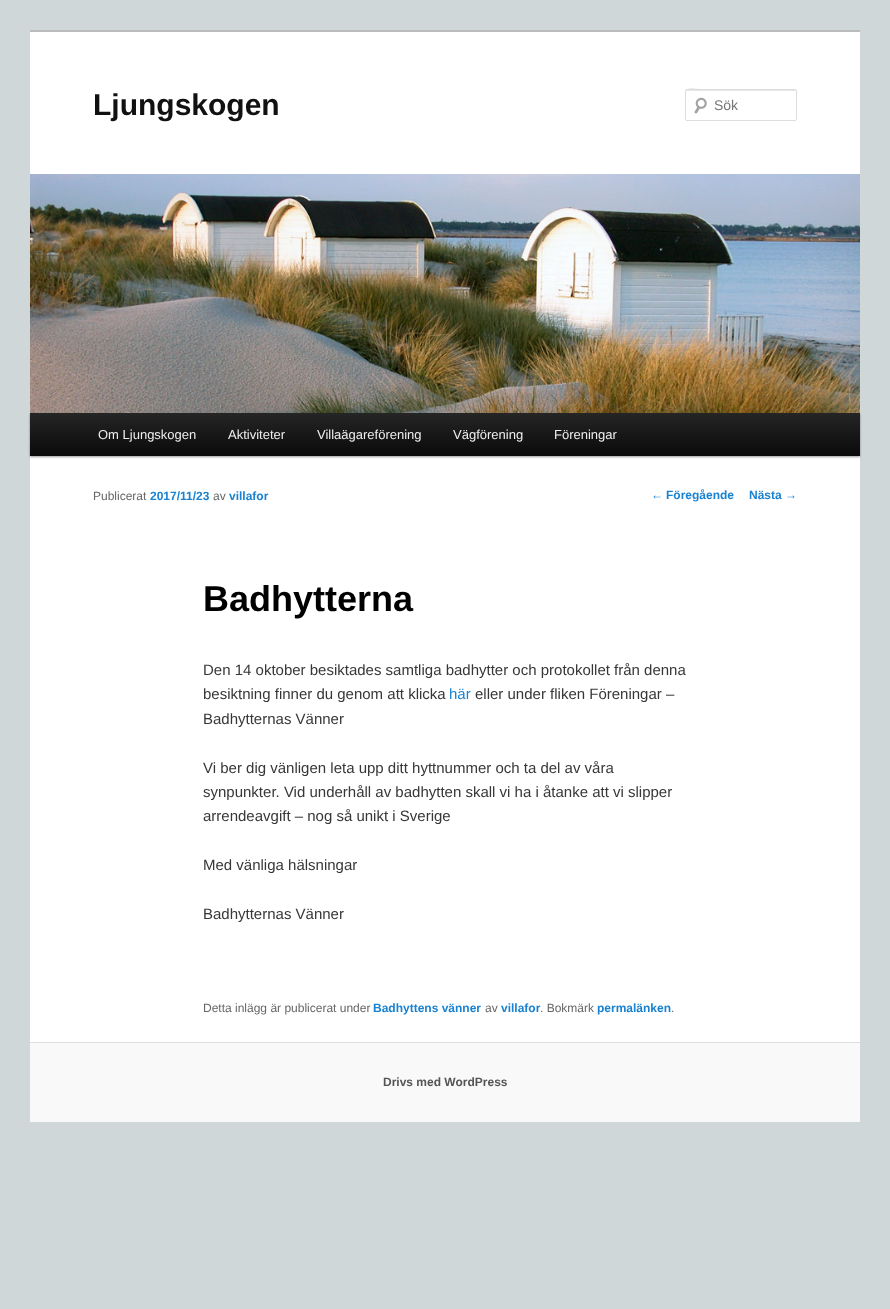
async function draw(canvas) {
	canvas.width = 890;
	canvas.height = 1309;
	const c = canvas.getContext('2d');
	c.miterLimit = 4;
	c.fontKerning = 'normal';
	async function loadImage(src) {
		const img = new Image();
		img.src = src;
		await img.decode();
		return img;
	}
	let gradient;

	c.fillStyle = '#d0d7d8';
	c.fillRect(0, 0, 890, 1309);
	c.fillStyle = '#fff';
	c.fillRect(30, 32, 830, 1010);
	c.fillStyle = '#bbb';
	c.fillRect(30, 30, 830, 2);
	c.font = 'bold 30px Liberation Sans';
	c.fillStyle = '#111';
	c.fillText('Ljungskogen', 93, 115);
	c.drawImage(await loadImage('img1.png'), 694, 97, 13, 17);
	c.fillStyle = '#e6e6e6';
	c.beginPath();
	c.moveTo(687, 91);
	c.lineTo(796, 91);
	c.lineTo(796, 92);
	c.lineTo(795, 90);
	c.lineTo(705, 90);
	c.bezierCurveTo(701, 90, 686, 85, 686, 92);
	c.bezierCurveTo(686, 91, 686, 91, 687, 91);
	c.closePath();
	c.fill();
	c.beginPath();
	c.roundRect(685.5, 89.5, 111, 31, 1.5);
	c.strokeStyle = '#ddd';
	c.stroke();
	c.font = '14px Liberation Sans';
	c.fillStyle = '#757575';
	c.fillText('Sök', 714, 110);
	c.fillStyle = '#00000066';
	c.filter = 'blur(1px)';
	c.beginPath();
	c.rect(30, 414, 830, 43);
	c.fill();
	c.filter = 'none';
	c.drawImage(await loadImage('img2.png'), 30, 174, 830, 239);
	gradient = c.createLinearGradient(445, 413, 445, 456);
	gradient.addColorStop(0, '#252525');
	gradient.addColorStop(1, '#0a0a0a');
	c.fillStyle = gradient;
	c.fillRect(30, 413, 830, 43);
	c.font = '13px Liberation Sans';
	c.fillStyle = '#eee';
	for (const [text, x, y] of [
		['Om Ljungskogen', 98, 439],
		['Aktiviteter', 228, 439],
		['Villaägareförening', 317, 439],
		['Vägförening', 453, 439],
		['Föreningar', 554, 439],
	]) {
		c.fillText(text, x, y);
	}
	c.font = '12px Liberation Sans';
	c.fillStyle = '#666';
	c.fillText('Publicerat', 93, 500);
	c.font = 'bold 12px Liberation Sans';
	c.fillStyle = '#1982d1';
	c.fillText('2017/11/23', 150, 500);
	c.font = '12px Liberation Sans';
	c.fillStyle = '#666';
	c.fillText('av', 213, 500);
	c.font = 'bold 12px Liberation Sans';
	c.fillStyle = '#1982d1';
	c.fillText('villafor', 229, 500);
	c.font = 'bold 36px Liberation Sans';
	c.fillStyle = '#000';
	c.fillText('Badhytterna', 203, 611);
	c.font = '15px Liberation Sans';
	c.fillStyle = '#373737';
	c.fillText('Den 14 oktober besiktades samtliga badhytter och protokollet från denna', 203, 675);
	c.fillText('besiktning finner du genom att klicka', 203, 699);
	c.fillStyle = '#1982d1';
	c.fillText('här', 449, 699);
	c.fillStyle = '#373737';
	for (const [text, x, y] of [
		['eller under fliken Föreningar –', 475, 699],
		['Badhytternas Vänner', 203, 724],
		['Vi ber dig vänligen leta upp ditt hyttnummer och ta del av våra', 203, 773],
		['synpunkter. Vid underhåll av badhytten skall vi ha i åtanke att vi slipper', 203, 797],
		['arrendeavgift – nog så unikt i Sverige', 203, 821],
		['Med vänliga hälsningar', 203, 870],
		['Badhytternas Vänner', 203, 919],
	]) {
		c.fillText(text, x, y);
	}
	c.font = '12px Liberation Sans';
	c.fillStyle = '#666';
	c.fillText('Detta inlägg är publicerat under', 203, 1012);
	c.font = 'bold 12px Liberation Sans';
	c.fillStyle = '#1982d1';
	c.fillText('Badhyttens vänner', 373, 1012);
	c.font = '12px Liberation Sans';
	c.fillStyle = '#666';
	c.fillText('av', 485, 1012);
	c.font = 'bold 12px Liberation Sans';
	c.fillStyle = '#1982d1';
	c.fillText('villafor', 501, 1012);
	c.font = '12px Liberation Sans';
	c.fillStyle = '#666';
	c.fillText('. Bokmärk', 540, 1012);
	c.font = 'bold 12px Liberation Sans';
	c.fillStyle = '#1982d1';
	c.fillText('permalänken', 597, 1012);
	c.font = '12px Liberation Sans';
	c.fillStyle = '#666';
	c.fillText('.', 671, 1012);
	c.fillStyle = '#1982d1';
	c.fillText('←', 651, 499);
	c.font = 'bold 12px Liberation Sans';
	c.fillText('Föregående', 666, 499);
	c.fillText('Nästa', 749, 499);
	c.font = '12px Liberation Sans';
	c.fillText('→', 785, 499);
	c.fillStyle = '#f9f9f9';
	c.fillRect(30, 1043, 830, 79);
	c.fillStyle = '#ddd';
	c.fillRect(30, 1042, 830, 1);
	c.font = 'bold 12px Liberation Sans';
	c.fillStyle = '#555';
	c.fillText('Drivs med WordPress', 383, 1086);
}

draw(document.querySelector('canvas'));
